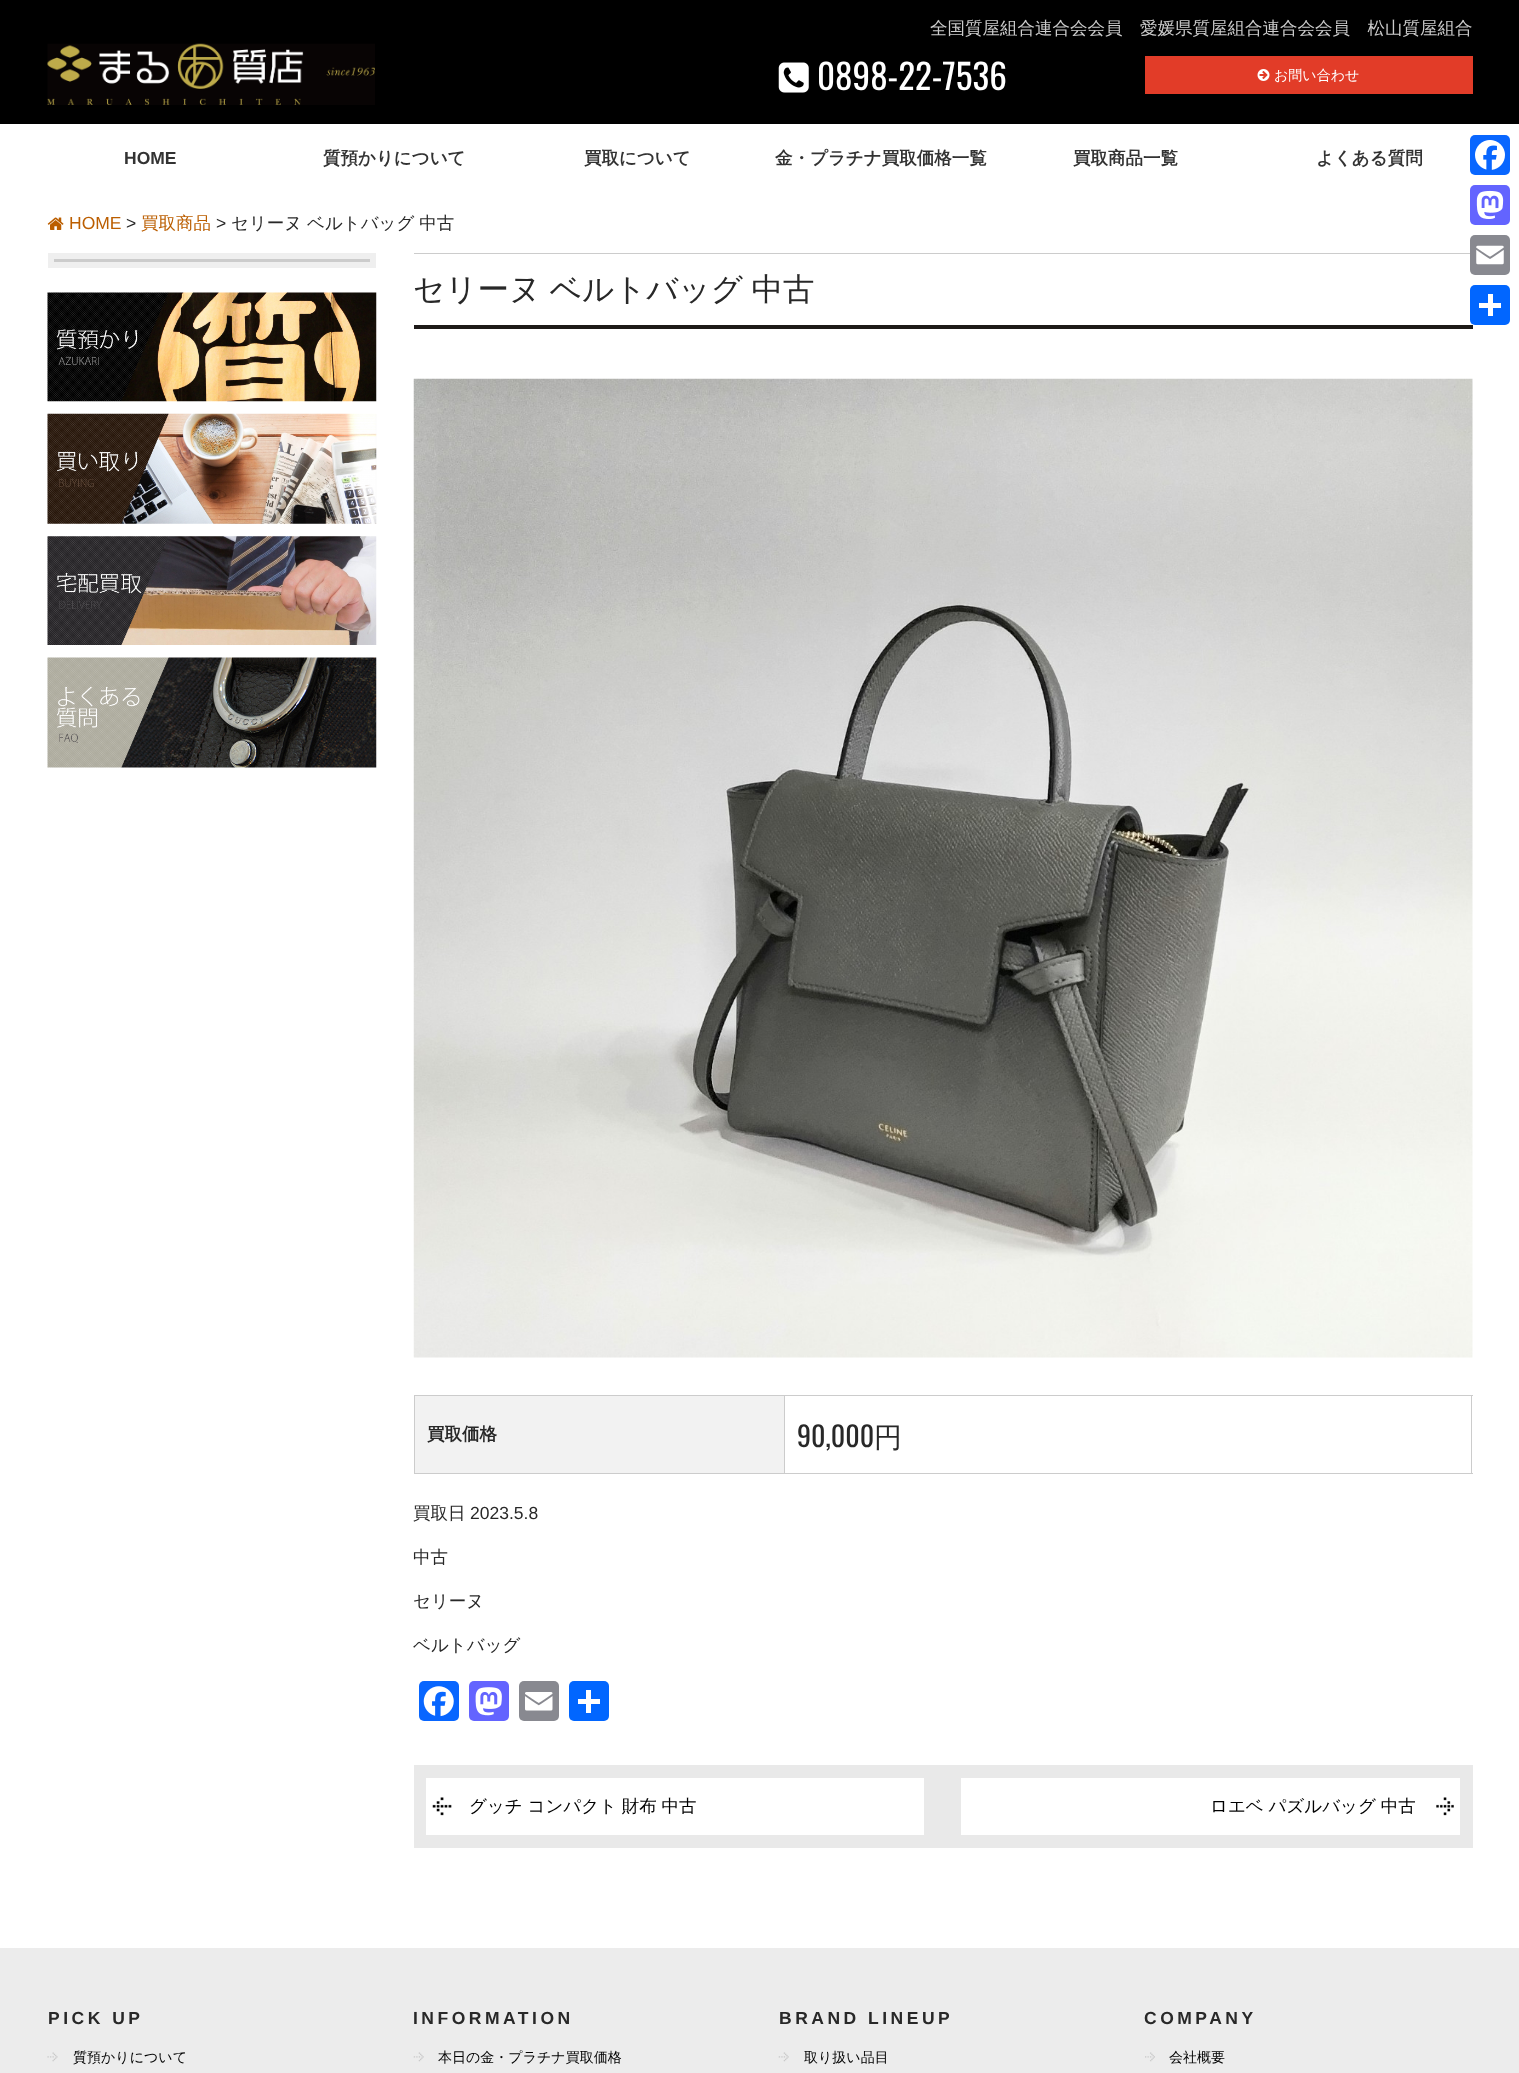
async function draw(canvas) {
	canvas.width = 1519;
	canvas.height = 2073;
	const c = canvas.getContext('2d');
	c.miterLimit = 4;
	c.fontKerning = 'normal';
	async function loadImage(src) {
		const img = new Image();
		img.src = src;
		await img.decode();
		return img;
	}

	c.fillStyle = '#fff';
	c.fillRect(0, 0, 1519, 2073);
	c.fillStyle = '#000';
	c.fillRect(0, 0, 1519, 124);
	c.font = '500 17.5px WenQuanYi Zen Hei';
	c.fillStyle = '#ccc';
	c.fillText('全国質屋組合連合会会員　愛媛県質屋組合連合会会員　松山質屋組合', 930, 34);
	c.drawImage(await loadImage('img1.png'), 47, 43, 328, 62);
	c.drawImage(await loadImage('img2.png'), 778, 62, 31, 31);
	c.font = '35px Oswald';
	c.fillStyle = '#fff';
	c.fillText('0898-22-7536', 817, 90);
	c.fillStyle = '#e23c28';
	c.fillRect(1145, 56, 328, 38);
	c.drawImage(await loadImage('img3.png'), 1257, 69, 13, 12);
	c.font = '500 14px WenQuanYi Zen Hei';
	c.fillStyle = '#fff';
	c.fillText('お問い合わせ', 1274, 80);
	c.font = 'bold 17.5px Liberation Sans';
	c.fillStyle = '#333';
	c.fillText('HOME', 124, 164);
	c.font = 'bold 17.5px WenQuanYi Zen Hei';
	for (const [text, x, y] of [
		['質預かりについて', 323, 164],
		['買取について', 584, 164],
		['金・プラチナ買取価格一覧', 775, 164],
		['買取商品一覧', 1073, 164],
		['よくある質問', 1316, 164],
	]) {
		c.fillText(text, x, y);
	}
	c.fillStyle = '#0866ff';
	c.beginPath();
	c.roundRect(1470, 135, 40, 40, 5);
	c.fill();
	c.drawImage(await loadImage('img4.png'), 1475, 140, 30, 30);
	c.fillStyle = '#6364ff';
	c.beginPath();
	c.roundRect(1470, 185, 40, 40, 5);
	c.fill();
	c.drawImage(await loadImage('img5.png'), 1476, 190, 28, 29);
	c.fillStyle = '#ccc';
	c.fillRect(414, 253, 1059, 1);
	c.fillStyle = '#888990';
	c.beginPath();
	c.roundRect(1470, 235, 40, 40, 5);
	c.fill();
	c.drawImage(await loadImage('img6.png'), 1476, 245, 28, 20);
	c.fillStyle = '#0166ff';
	c.beginPath();
	c.roundRect(1470, 285, 40, 40, 5);
	c.fill();
	c.fillStyle = '#fff';
	c.fillRect(1488, 294, 5, 22);
	c.fillRect(1479, 303, 22, 5);
	c.drawImage(await loadImage('img7.png'), 47, 217, 17, 13);
	c.font = '17.5px Liberation Sans';
	c.fillStyle = '#bb5e00';
	c.fillText('HOME', 69, 229);
	c.fillStyle = '#282828';
	c.fillText('>', 126, 229);
	c.font = '500 17.5px WenQuanYi Zen Hei';
	c.fillStyle = '#bb5e00';
	c.fillText('買取商品', 141, 229);
	c.font = '17.5px Liberation Sans';
	c.fillStyle = '#282828';
	c.fillText('>', 216, 229);
	c.wordSpacing = '-0.5px';
	c.font = '500 17.5px WenQuanYi Zen Hei';
	c.fillText('セリーヌ ベルトバッグ 中古', 231, 229);
	c.strokeStyle = '#efefef';
	c.lineWidth = 6;
	c.strokeRect(51, 256, 322, 9);
	c.fillStyle = '#ccc';
	c.fillRect(54, 259, 316, 3);
	c.drawImage(await loadImage('img8.png'), 47, 292, 330, 110);
	c.drawImage(await loadImage('img9.png'), 47, 413, 330, 111);
	c.drawImage(await loadImage('img10.png'), 47, 536, 330, 109);
	c.drawImage(await loadImage('img11.png'), 47, 657, 330, 111);
	c.fillStyle = '#1d1a18';
	c.fillRect(414, 325, 1059, 4);
	c.wordSpacing = '-1px';
	c.font = '500 31.5px WenQuanYi Zen Hei';
	c.fillStyle = '#282828';
	c.fillText('セリーヌ ベルトバッグ 中古', 413, 300);
	c.drawImage(await loadImage('img12.png'), 413, 378, 1060, 980);
	for (const [x, y, w, h, color] of [
		[414, 1395, 1059, 1, '#ccc'],
		[1471, 1395, 1, 79, '#ccc'],
		[414, 1473, 1059, 1, '#ccc'],
		[414, 1395, 1, 79, '#ccc'],
		[415, 1396, 369, 77, '#f2f2f2'],
	]) {
		c.fillStyle = color;
		c.fillRect(x, y, w, h);
	}
	c.wordSpacing = '0px';
	c.font = 'bold 17.5px WenQuanYi Zen Hei';
	c.fillStyle = '#282828';
	c.fillText('買取価格', 427, 1440);
	c.fillStyle = '#ccc';
	c.fillRect(784, 1395, 1, 79);
	c.font = '28px Oswald';
	c.fillStyle = '#282828';
	c.fillText('90,000', 797, 1447);
	c.font = '500 28px WenQuanYi Zen Hei';
	c.fillText('円', 874, 1447);
	c.font = '500 17.5px WenQuanYi Zen Hei';
	c.fillText('買取日', 413, 1519);
	c.font = '17.5px Liberation Sans';
	c.fillText('2023.5.8', 470, 1519);
	c.font = '500 17.5px WenQuanYi Zen Hei';
	for (const [text, x, y] of [
		['中古', 413, 1563],
		['セリーヌ', 413, 1607],
		['ベルトバッグ', 413, 1651],
	]) {
		c.fillText(text, x, y);
	}
	c.fillStyle = '#0866ff';
	c.beginPath();
	c.roundRect(419, 1681, 40, 40, 5);
	c.fill();
	c.drawImage(await loadImage('img13.png'), 423, 1686, 31, 31);
	c.fillStyle = '#6364ff';
	c.beginPath();
	c.roundRect(469, 1681, 40, 40, 5);
	c.fill();
	c.drawImage(await loadImage('img14.png'), 475, 1687, 27, 29);
	c.fillStyle = '#888990';
	c.beginPath();
	c.roundRect(519, 1681, 40, 40, 5);
	c.fill();
	c.drawImage(await loadImage('img15.png'), 525, 1692, 28, 19);
	c.fillStyle = '#0166ff';
	c.beginPath();
	c.roundRect(569, 1681, 40, 40, 5);
	c.fill();
	for (const [x, y, w, h, color] of [
		[586, 1690, 5, 23, '#fff'],
		[578, 1699, 22, 5, '#fff'],
		[414, 1765, 1059, 83, '#e9e9e9'],
		[426, 1778, 498, 57, '#fff'],
	]) {
		c.fillStyle = color;
		c.fillRect(x, y, w, h);
	}
	c.drawImage(await loadImage('img16.png'), 432, 1797, 20, 19);
	c.wordSpacing = '-0.5px';
	c.fillStyle = '#000';
	c.fillText('グッチ コンパクト 財布 中古', 469, 1812);
	c.fillStyle = '#fff';
	c.fillRect(961, 1778, 499, 57);
	c.drawImage(await loadImage('img17.png'), 1436, 1797, 18, 19);
	c.fillStyle = '#000';
	c.fillText('ロエベ パズルバッグ 中古', 1210, 1812);
	c.fillStyle = '#ececec';
	c.fillRect(0, 1948, 1519, 125);
	c.letterSpacing = '3.5px';
	c.wordSpacing = '0px';
	c.font = 'bold 17.5px Liberation Sans';
	c.fillStyle = '#282828';
	c.fillText('PICK UP', 48, 2024);
	c.drawImage(await loadImage('img18.png'), 47, 2052, 11, 10);
	c.letterSpacing = '0px';
	c.font = '500 14px WenQuanYi Zen Hei';
	c.fillStyle = '#000';
	c.fillText('質預かりについて', 73, 2062);
	c.letterSpacing = '3.5px';
	c.font = 'bold 17.5px Liberation Sans';
	c.fillStyle = '#282828';
	c.fillText('INFORMATION', 413, 2024);
	c.drawImage(await loadImage('img19.png'), 413, 2052, 11, 10);
	c.letterSpacing = '0px';
	c.font = '500 14px WenQuanYi Zen Hei';
	c.fillStyle = '#000';
	c.fillText('本日の金・プラチナ買取価格', 438, 2062);
	c.letterSpacing = '3.5px';
	c.font = 'bold 17.5px Liberation Sans';
	c.fillStyle = '#282828';
	c.fillText('BRAND LINEUP', 779, 2024);
	c.drawImage(await loadImage('img20.png'), 778, 2052, 11, 10);
	c.letterSpacing = '0px';
	c.font = '500 14px WenQuanYi Zen Hei';
	c.fillStyle = '#000';
	c.fillText('取り扱い品目', 804, 2062);
	c.letterSpacing = '3.5px';
	c.font = 'bold 17.5px Liberation Sans';
	c.fillStyle = '#282828';
	c.fillText('COMPANY', 1144, 2024);
	c.drawImage(await loadImage('img21.png'), 1145, 2052, 10, 10);
	c.letterSpacing = '0px';
	c.font = '500 14px WenQuanYi Zen Hei';
	c.fillStyle = '#000';
	c.fillText('会社概要', 1169, 2062);
}

draw(document.querySelector('canvas'));
